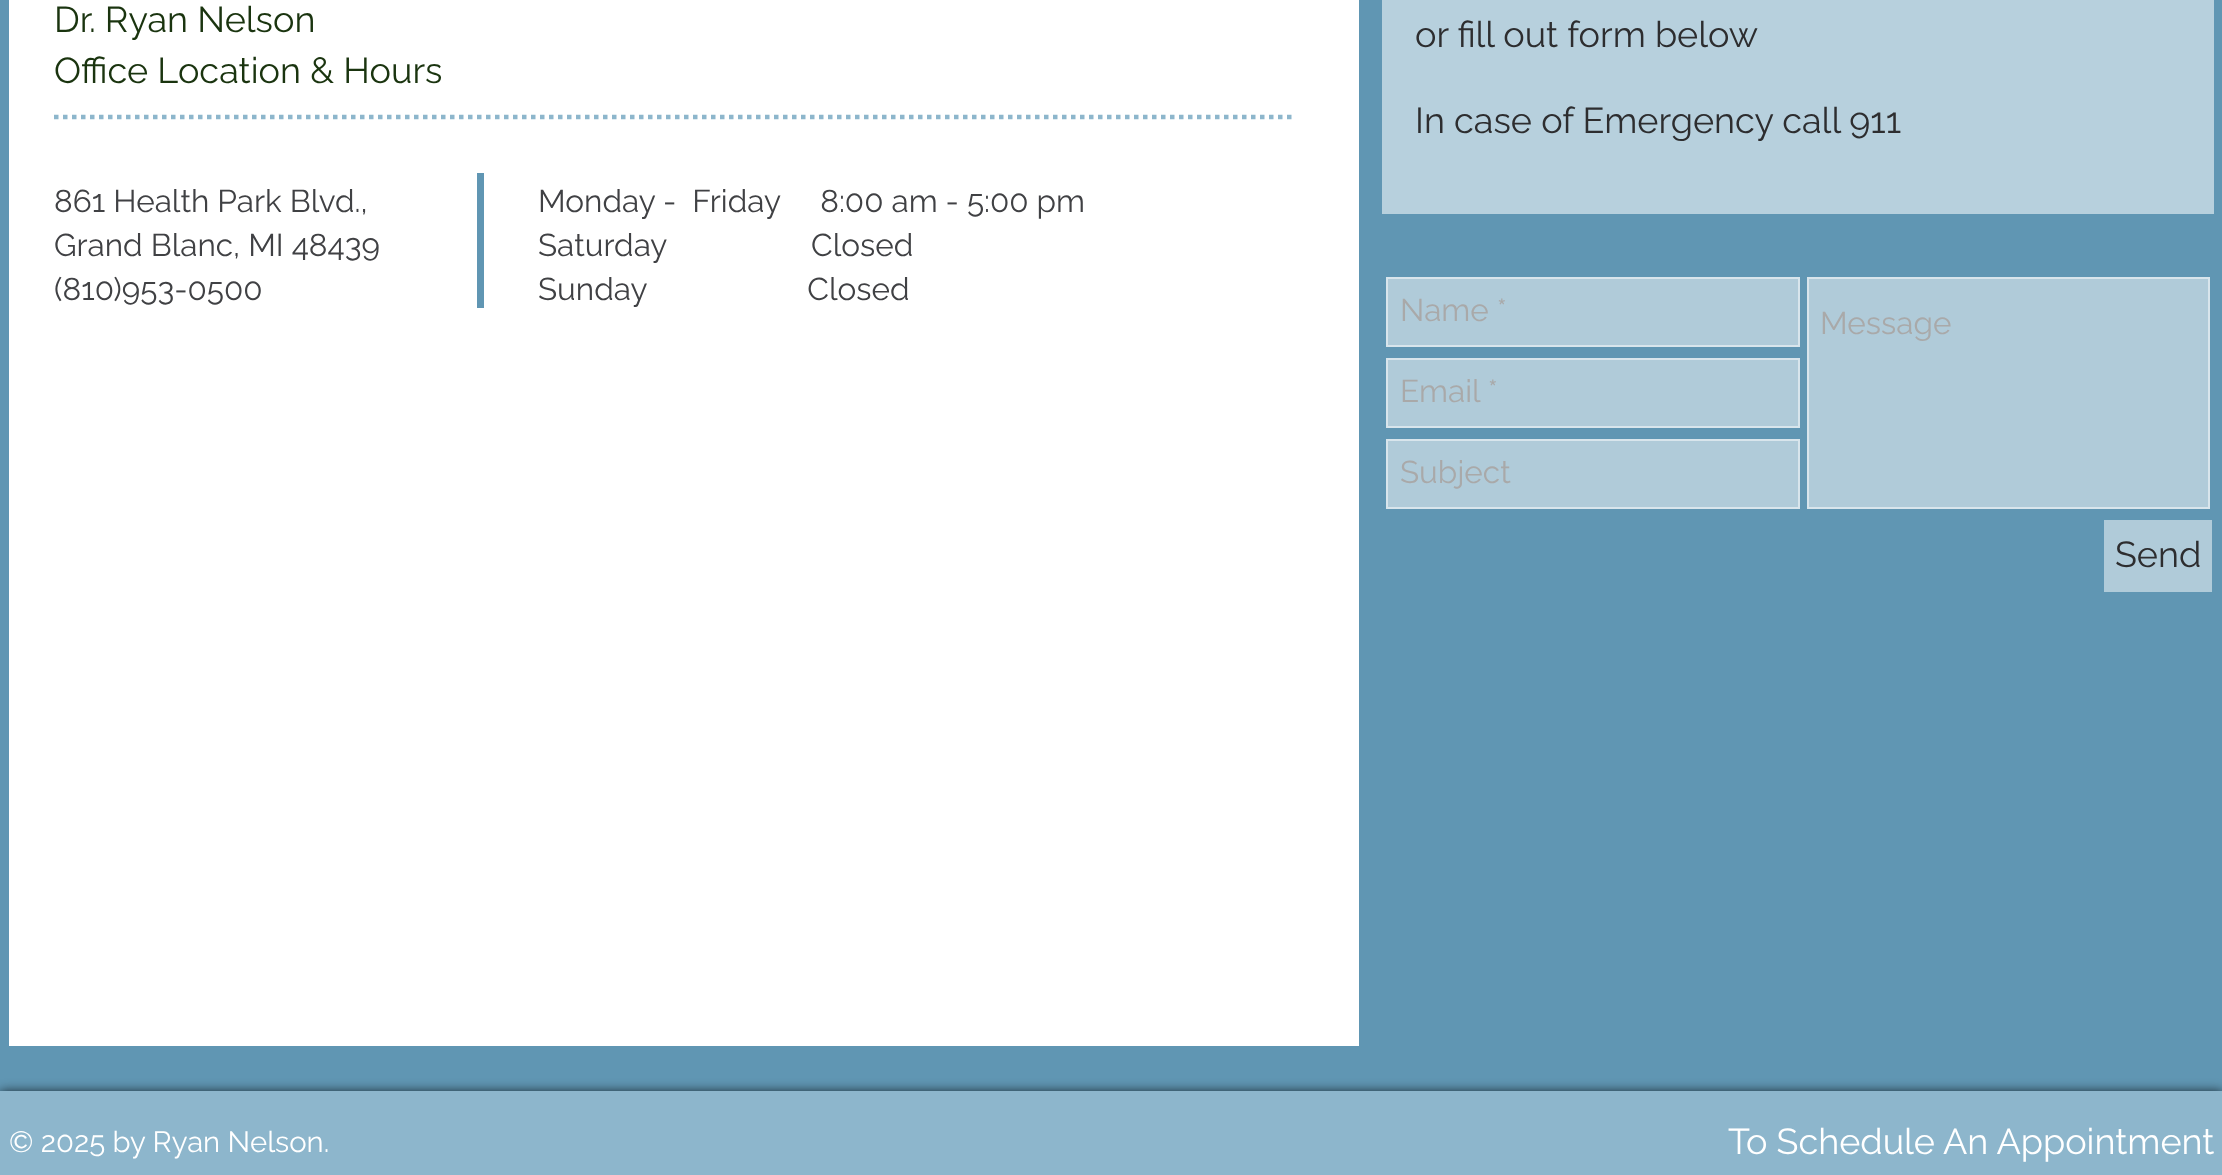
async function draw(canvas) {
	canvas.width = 2222;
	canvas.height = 1175;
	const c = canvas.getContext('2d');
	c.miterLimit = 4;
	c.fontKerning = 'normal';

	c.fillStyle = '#6096b3';
	c.fillRect(0, 0, 2222, 1175);
	c.fillStyle = '#fff';
	c.fillRect(9, 0, 1350, 1046);
	c.font = '36px Raleway';
	c.fillStyle = '#1a340f';
	c.fillText('Dr. Ryan Nelson', 54, 32);
	c.fillText('Office Location & Hours', 54, 83);
	c.beginPath();
	c.moveTo(54, 117);
	c.lineTo(1291.5, 117);
	c.strokeStyle = '#8db6cc';
	c.lineWidth = 4.5;
	c.setLineDash([4.5, 4.5]);
	c.stroke();
	c.font = '31.5px Raleway';
	c.fillStyle = '#404144';
	for (const [text, x, y] of [
		['861 Health Park Blvd.,', 54, 212],
		['Grand Blanc, MI 48439', 54, 256],
		['(810)953-0500', 54, 300],
	]) {
		c.fillText(text, x, y);
	}
	c.fillStyle = '#6096b3';
	c.fillRect(477, 173, 7, 135);
	c.fillStyle = '#404144';
	for (const [text, x, y] of [
		['Monday -  Friday     8:00 am - 5:00 pm', 538, 212],
		['Saturday                  Closed', 538, 256],
		['Sunday                    Closed', 538, 300],
	]) {
		c.fillText(text, x, y);
	}
	c.fillStyle = '#b7d0dd';
	c.fillRect(1382, 0, 832, 214);
	c.font = '36px Raleway';
	c.fillStyle = '#2d2d2f';
	c.fillText('or fill out form below', 1415, 47);
	c.fillText('In case of Emergency call 911', 1415, 133);
	c.fillStyle = '#b0cbd9';
	c.beginPath();
	c.rect(1387, 278, 412, 68);
	c.fill();
	c.strokeStyle = '#d8e5ec';
	c.lineWidth = 2;
	c.setLineDash([]);
	c.stroke();
	c.font = '31.5px Raleway';
	c.fillStyle = '#a9a9a9';
	c.fillText('Name *', 1400, 321);
	c.fillStyle = '#b0cbd9';
	c.beginPath();
	c.rect(1808, 278, 401, 230);
	c.fill();
	c.stroke();
	c.fillStyle = '#a9a9a9';
	c.fillText('Message', 1820, 334);
	c.fillStyle = '#b0cbd9';
	c.beginPath();
	c.rect(1387, 359, 412, 68);
	c.fill();
	c.stroke();
	c.fillStyle = '#a9a9a9';
	c.fillText('Email *', 1400, 402);
	c.fillStyle = '#b0cbd9';
	c.beginPath();
	c.rect(1387, 440, 412, 68);
	c.fill();
	c.stroke();
	c.fillStyle = '#a9a9a9';
	c.fillText('Subject', 1400, 483);
	c.fillStyle = '#b0cbd9';
	c.fillRect(2104, 520, 108, 72);
	c.font = '36px Raleway';
	c.fillStyle = '#2d2d2f';
	c.fillText('Send', 2115, 567);
	c.fillStyle = '#000000b3';
	c.filter = 'blur(5.5px)';
	c.beginPath();
	c.rect(0, 1091, 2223, 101);
	c.fill();
	c.filter = 'none';
	c.fillStyle = '#8db6cc';
	c.fillRect(0, 1091, 2222, 84);
	c.font = '29.25px Raleway';
	c.fillStyle = '#fff';
	c.fillText('© 2025 by Ryan Nelson.', 9, 1152);
	c.font = '36px Raleway';
	c.fillText('To Schedule An Appointment', 1728, 1154);
}

draw(document.querySelector('canvas'));
